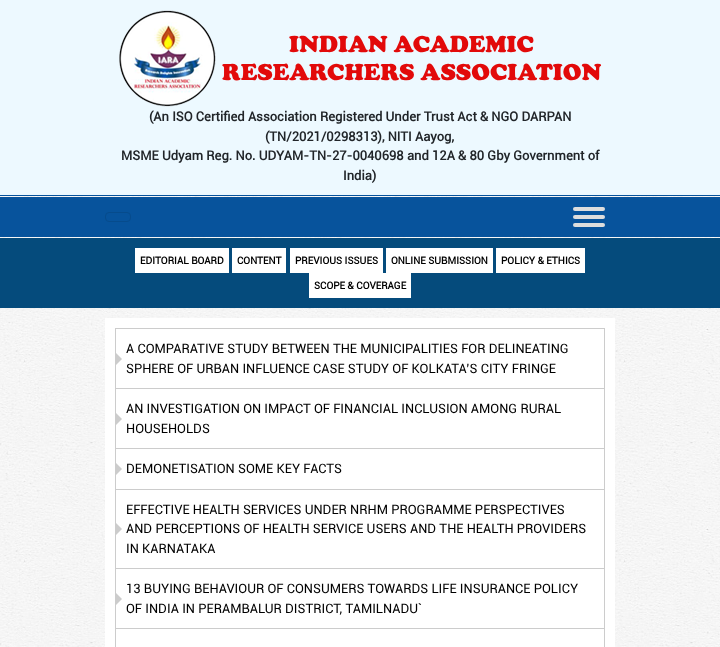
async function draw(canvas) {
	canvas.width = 720;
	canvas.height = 647;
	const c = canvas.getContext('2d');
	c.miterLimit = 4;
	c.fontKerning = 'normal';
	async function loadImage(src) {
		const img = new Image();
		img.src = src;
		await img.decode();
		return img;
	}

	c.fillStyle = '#fff';
	c.fillRect(0, 0, 720, 647);
	c.drawImage(await loadImage('img1.png'), 0, 196, 720, 451);
	c.fillStyle = '#edf9ff';
	c.fillRect(0, 0, 720, 195);
	c.fillStyle = '#07539c';
	c.fillRect(0, 195, 720, 1);
	c.drawImage(await loadImage('img2.png'), 119, 10, 97, 97);
	c.font = '900 24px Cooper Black';
	c.fillStyle = '#e20a0a';
	c.fillText('INDIAN ACADEMIC', 289, 52);
	c.fillText('RESEARCHERS ASSOCIATION', 222, 80);
	c.font = 'bold 13px Roboto';
	c.fillStyle = '#212529';
	for (const [text, x, y] of [
		['(An ISO Certified Association Registered Under Trust Act & NGO DARPAN', 149, 121],
		['(TN/2021/0298313), NITI Aayog,', 265, 141],
		['MSME Udyam Reg. No. UDYAM-TN-27-0040698 and 12A & 80 Gby Government of', 121, 160],
		['India)', 343, 180],
	]) {
		c.fillText(text, x, y);
	}
	c.fillStyle = '#07539c';
	c.fillRect(0, 197, 720, 40);
	c.beginPath();
	c.roundRect(105.5, 212.5, 25, 9, 3.5);
	c.strokeStyle = '#064b8c';
	c.stroke();
	c.fillStyle = '#ddd';
	c.beginPath();
	c.roundRect(573, 207, 32, 4, 2);
	c.fill();
	c.beginPath();
	c.roundRect(573, 215, 32, 4, 2);
	c.fill();
	c.beginPath();
	c.roundRect(573, 223, 32, 4, 2);
	c.fill();
	c.fillStyle = '#054b7c';
	c.fillRect(0, 238, 720, 70);
	c.fillStyle = '#fff';
	c.fillRect(135, 248, 94, 25);
	c.font = 'bold 10px Roboto';
	c.fillStyle = '#000';
	c.fillText('EDITORIAL BOARD', 140, 264);
	c.fillStyle = '#fff';
	c.fillRect(232, 248, 54, 25);
	c.fillStyle = '#000';
	c.fillText('CONTENT', 237, 264);
	c.fillStyle = '#fff';
	c.fillRect(290, 248, 93, 25);
	c.fillStyle = '#000';
	c.fillText('PREVIOUS ISSUES', 295, 264);
	c.fillStyle = '#fff';
	c.fillRect(386, 248, 107, 25);
	c.fillStyle = '#000';
	c.fillText('ONLINE SUBMISSION', 391, 264);
	c.fillStyle = '#fff';
	c.fillRect(496, 248, 89, 25);
	c.fillStyle = '#000';
	c.fillText('POLICY & ETHICS', 501, 264);
	c.fillStyle = '#fff';
	c.fillRect(309, 273, 102, 25);
	c.fillStyle = '#000';
	c.fillText('SCOPE & COVERAGE', 314, 289);
	c.fillStyle = '#fff';
	c.fillRect(105, 318, 510, 329);
	c.strokeStyle = '#ccc';
	c.strokeRect(115.5, 328.5, 489, 60);
	c.font = '13px Roboto';
	c.fillStyle = '#000';
	c.fillText('A COMPARATIVE STUDY BETWEEN THE MUNICIPALITIES FOR DELINEATING', 126, 353);
	c.fillStyle = '#ccc';
	c.beginPath();
	c.moveTo(116, 365);
	c.lineTo(116, 353);
	c.lineTo(122, 359);
	c.closePath();
	c.fill();
	c.fillStyle = '#000';
	c.fillText('SPHERE OF URBAN INFLUENCE CASE STUDY OF KOLKATA’S CITY FRINGE', 126, 373);
	c.strokeRect(115.5, 388.5, 489, 60);
	c.fillText('AN INVESTIGATION ON IMPACT OF FINANCIAL INCLUSION AMONG RURAL', 126, 413);
	c.fillStyle = '#ccc';
	c.beginPath();
	c.moveTo(116, 425);
	c.lineTo(116, 413);
	c.lineTo(122, 419);
	c.closePath();
	c.fill();
	c.fillStyle = '#000';
	c.fillText('HOUSEHOLDS', 126, 433);
	c.strokeRect(115.5, 448.5, 489, 41);
	c.fillStyle = '#ccc';
	c.beginPath();
	c.moveTo(116, 475);
	c.lineTo(116, 463);
	c.lineTo(122, 469);
	c.closePath();
	c.fill();
	c.fillStyle = '#000';
	c.fillText('DEMONETISATION SOME KEY FACTS', 126, 473);
	c.strokeRect(115.5, 489.5, 489, 79);
	c.fillText('EFFECTIVE HEALTH SERVICES UNDER NRHM PROGRAMME PERSPECTIVES', 126, 514);
	c.fillStyle = '#ccc';
	c.beginPath();
	c.moveTo(116, 535);
	c.lineTo(116, 523);
	c.lineTo(122, 529);
	c.closePath();
	c.fill();
	c.fillStyle = '#000';
	c.fillText('AND PERCEPTIONS OF HEALTH SERVICE USERS AND THE HEALTH PROVIDERS', 126, 533);
	c.fillText('IN KARNATAKA', 126, 553);
	c.strokeRect(115.5, 568.5, 489, 60);
	c.fillText('13 BUYING BEHAVIOUR OF CONSUMERS TOWARDS LIFE INSURANCE POLICY', 126, 593);
	c.fillStyle = '#ccc';
	c.beginPath();
	c.moveTo(116, 605);
	c.lineTo(116, 593);
	c.lineTo(122, 599);
	c.closePath();
	c.fill();
	c.fillStyle = '#000';
	c.fillText('OF INDIA IN PERAMBALUR DISTRICT, TAMILNADU`', 126, 613);
	c.strokeRect(115.5, 628.5, 489, 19);
}

draw(document.querySelector('canvas'));
